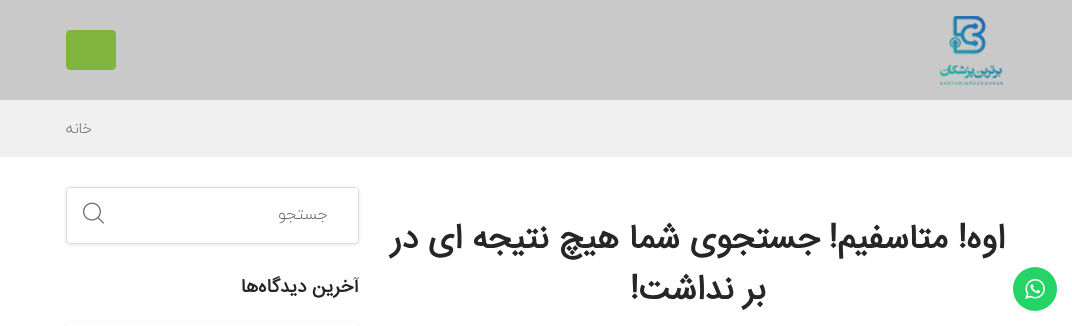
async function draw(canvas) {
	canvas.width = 1072;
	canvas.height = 326;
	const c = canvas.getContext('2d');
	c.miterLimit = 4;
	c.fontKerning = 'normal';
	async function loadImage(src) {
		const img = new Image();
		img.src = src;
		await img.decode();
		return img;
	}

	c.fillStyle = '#fff';
	c.fillRect(0, 0, 1072, 326);
	c.fillStyle = '#25d366';
	c.beginPath();
	c.arc(1035, 289, 22, 0, 2 * Math.PI);
	c.fill();
	c.drawImage(await loadImage('img1.png'), 1025, 279, 20, 20);
	c.fillStyle = '#c9c9c9';
	c.fillRect(0, 0, 1072, 100);
	c.drawImage(await loadImage('img2.png'), 940, 16, 63, 69);
	c.fillStyle = '#82b440';
	c.beginPath();
	c.roundRect(66.5, 30.5, 49, 39, 3.5);
	c.fill();
	c.strokeStyle = '#82b440';
	c.stroke();
	c.fillStyle = '#f0f0f0';
	c.fillRect(0, 100, 1072, 57);
	c.direction = 'rtl';
	c.font = '300 15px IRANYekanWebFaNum';
	c.fillStyle = '#6a6a6a';
	c.fillText('خانه', 92, 133);
	c.font = 'bold 34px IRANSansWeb';
	c.fillStyle = '#262626';
	for (const [text, x, y] of [
		['اوه!', 1005, 248],
		['متاسفیم! جستجوی شما هیچ نتیجه ای در', 948, 248],
		['بر نداشت!', 766, 299],
	]) {
		c.fillText(text, x, y);
	}
	c.fillStyle = '#00000017';
	c.filter = 'blur(2px)';
	c.beginPath();
	c.roundRect(66, 188, 293, 57, 4);
	c.fill();
	c.filter = 'none';
	c.fillStyle = '#fff';
	c.beginPath();
	c.roundRect(66.5, 187.5, 292, 56, 3.5);
	c.fill();
	c.strokeStyle = '#ddd';
	c.stroke();
	c.beginPath();
	c.roundRect(120, 188, 238, 52, [0, 3, 0, 0]);
	c.fill();
	c.font = '300 16px IRANYekanWebFaNum';
	c.fillStyle = '#6a6a6a';
	c.fillText('جستجو', 328, 219);
	c.drawImage(await loadImage('img3.png'), 83, 202, 21, 22);
	c.font = 'bold 19px IRANSansWeb';
	c.fillStyle = '#262626';
	c.fillText('آخرین دیدگاه‌ها', 359, 292);
	c.fillStyle = '#00000017';
	c.filter = 'blur(2px)';
	c.beginPath();
	c.roundRect(66, 323, 293, 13, 4);
	c.fill();
	c.filter = 'none';
	c.fillStyle = '#fff';
	c.beginPath();
	c.roundRect(66, 322, 293, 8, 4);
	c.fill();
}

draw(document.querySelector('canvas'));
